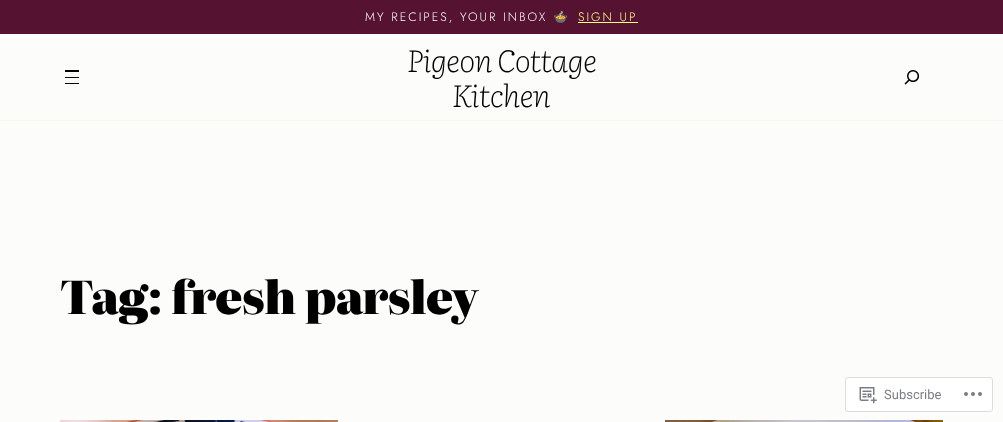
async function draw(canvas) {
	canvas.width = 1003;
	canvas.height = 422;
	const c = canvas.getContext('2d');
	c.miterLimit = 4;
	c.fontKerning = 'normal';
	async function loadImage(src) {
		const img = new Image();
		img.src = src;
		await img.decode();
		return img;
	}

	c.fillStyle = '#fcfcfa';
	c.fillRect(0, 0, 1003, 422);
	c.fillStyle = '#561331';
	c.fillRect(0, 0, 1003, 34);
	c.letterSpacing = '2px';
	c.font = '300 12.25px Jost';
	c.fillStyle = '#fcfcfa';
	c.fillText('MY RECIPES, YOUR INBOX', 365, 21);
	c.font = '12.25px Noto Color Emoji';
	c.fillText('🍲', 553, 21);
	c.font = '300 12.25px Jost';
	c.fillStyle = '#fffd8c';
	c.fillText('SIGN UP', 578, 21);
	for (const [x, y, w, h, color] of [
		[578, 22, 60, 1, '#fffd8c'],
		[0, 120, 1003, 1, '#f6f6f0'],
		[65, 70, 14, 2, '#000'],
		[65, 77, 14, 1, '#000'],
		[65, 83, 14, 1, '#000'],
	]) {
		c.fillStyle = color;
		c.fillRect(x, y, w, h);
	}
	c.letterSpacing = '-0.6px';
	c.font = 'italic 200 30.75px Literata';
	c.fillText('Pigeon Cottage', 407, 72);
	c.fillText('Kitchen', 452, 107);
	c.drawImage(await loadImage('img1.png'), 904, 70, 16, 15);
	c.letterSpacing = '-0.9px';
	c.font = '900 45.5px Literata';
	c.fillText('Tag: fresh parsley', 60, 314);
	c.drawImage(await loadImage('img2.png'), 60, 420, 278, 2);
	c.drawImage(await loadImage('img3.png'), 665, 420, 278, 2);
	c.fillStyle = '#fff';
	c.beginPath();
	c.roundRect(845.5, 377.5, 147, 34, 2.5);
	c.fill();
	c.strokeStyle = '#dddddf';
	c.stroke();
	c.drawImage(await loadImage('img4.png'), 859, 387, 18, 17);
	c.letterSpacing = '0px';
	c.font = '13px Roboto';
	c.fillStyle = '#7b7f84';
	c.fillText('Subscribe', 884, 399);
	c.drawImage(await loadImage('img5.png'), 964, 392, 18, 4);
}

draw(document.querySelector('canvas'));
